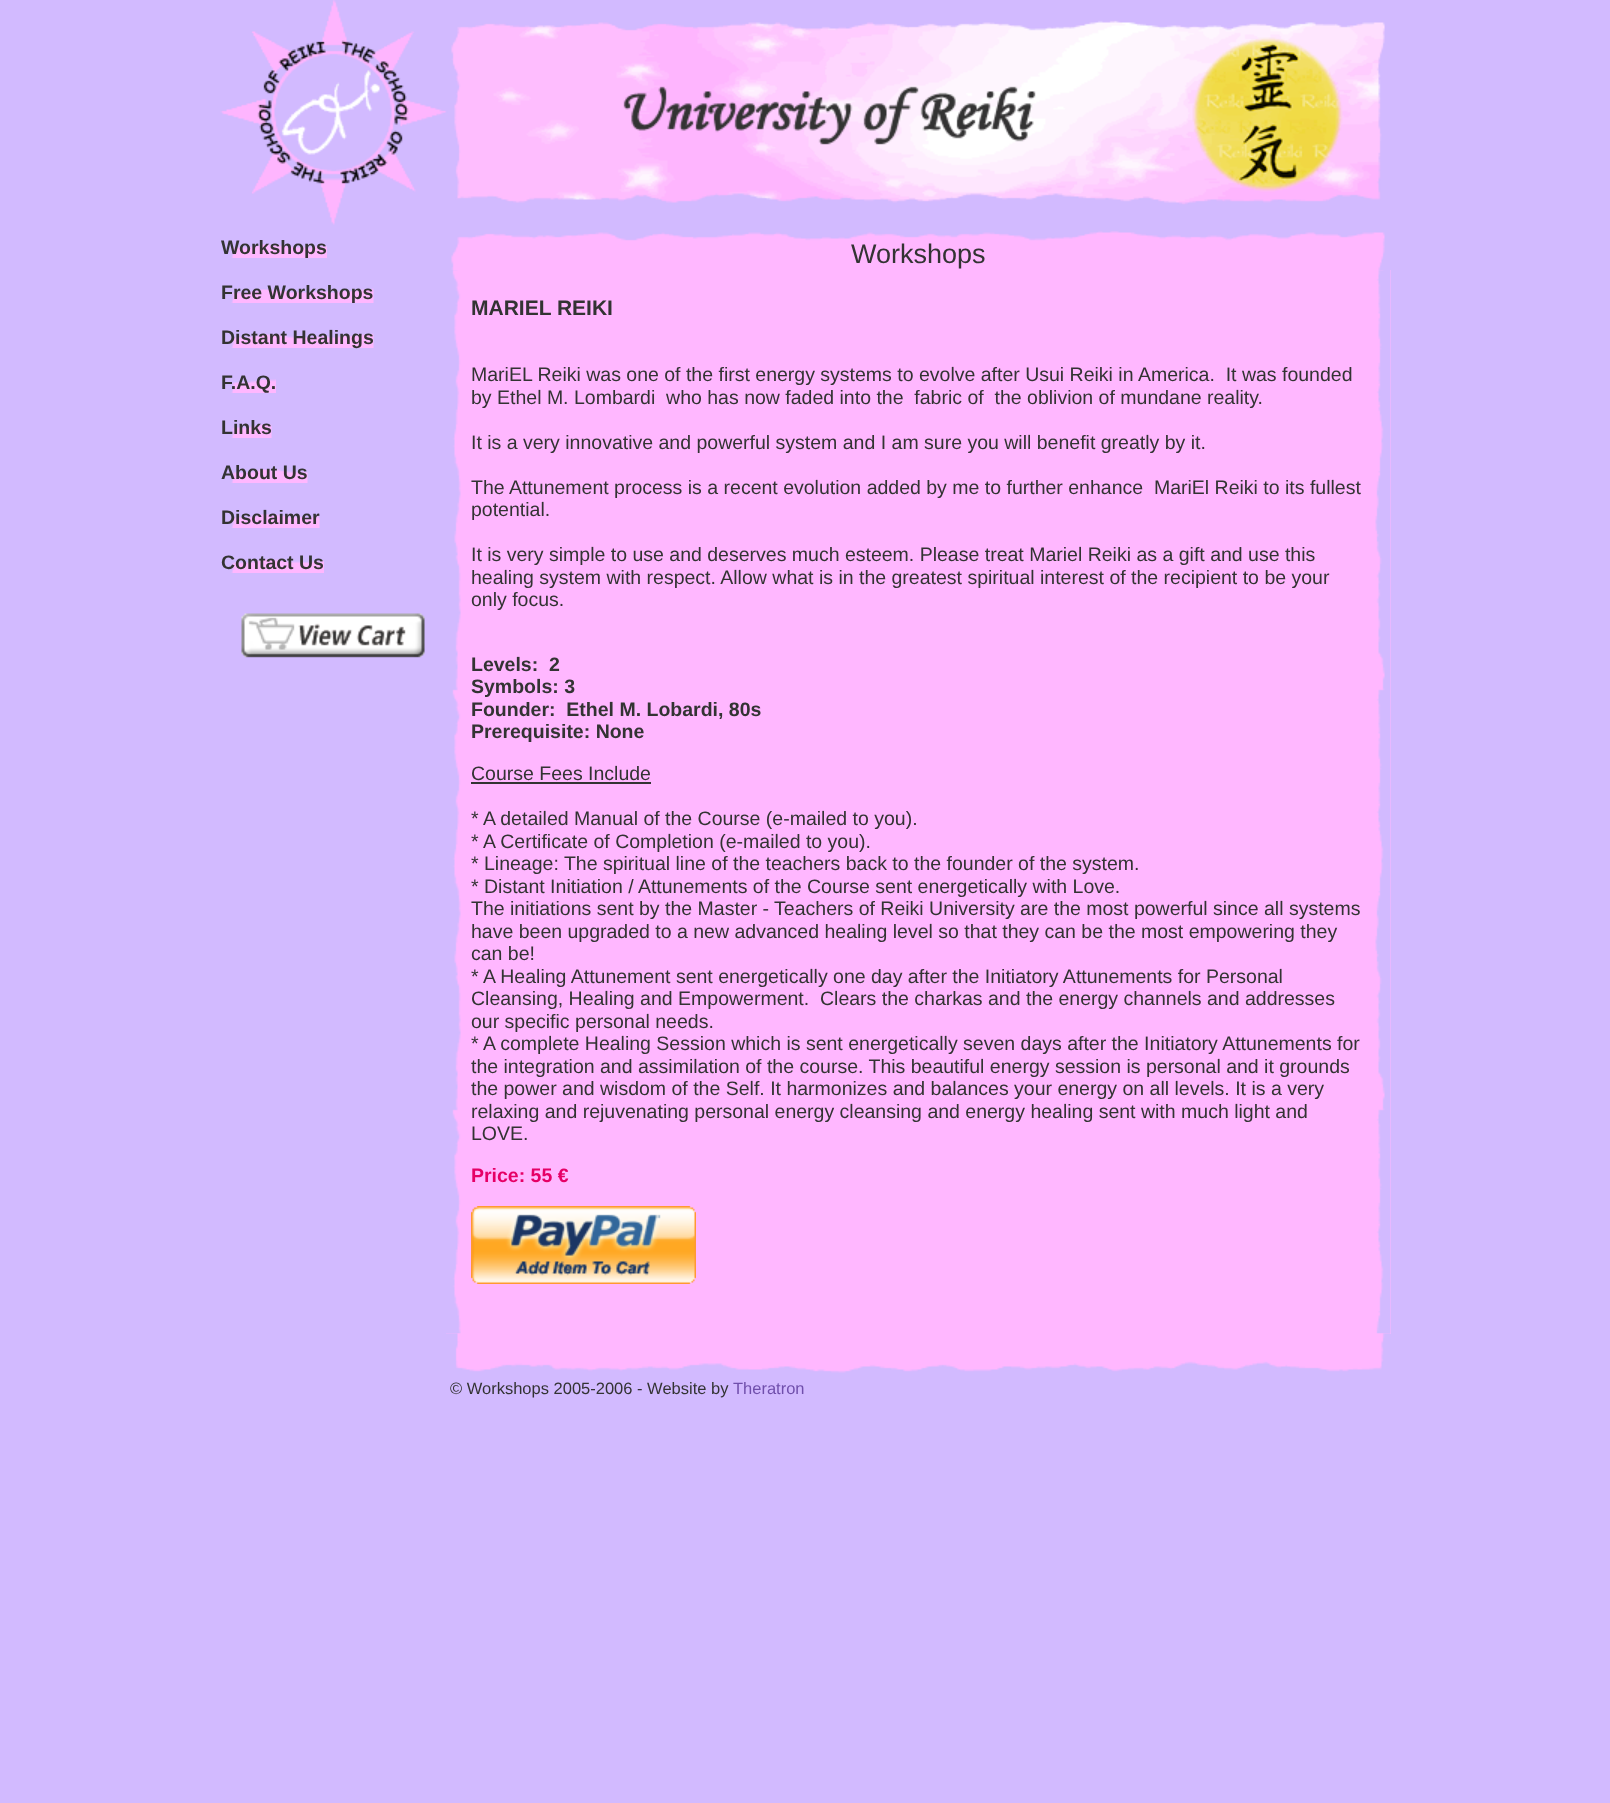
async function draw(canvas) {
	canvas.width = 1610;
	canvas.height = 1803;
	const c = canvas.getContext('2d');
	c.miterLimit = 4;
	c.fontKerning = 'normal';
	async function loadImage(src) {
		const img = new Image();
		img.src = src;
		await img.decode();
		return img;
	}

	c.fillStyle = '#d2baff';
	c.fillRect(0, 0, 1610, 1803);
	c.drawImage(await loadImage('img1.png'), 220, 0, 1165, 225);
	c.drawImage(await loadImage('img2.png'), 231, 244, 96, 14);
	c.font = 'bold 19.5px Liberation Sans';
	c.fillStyle = '#333';
	c.fillText('Workshops', 221, 254);
	c.drawImage(await loadImage('img3.png'), 231, 288, 143, 15);
	c.fillText('Free Workshops', 221, 299);
	c.drawImage(await loadImage('img4.png'), 231, 333, 143, 15);
	c.fillText('Distant Healings', 221, 344);
	c.drawImage(await loadImage('img5.png'), 231, 379, 45, 14);
	c.fillText('F.A.Q.', 221, 389);
	c.drawImage(await loadImage('img6.png'), 231, 424, 41, 14);
	c.fillText('Links', 221, 434);
	c.drawImage(await loadImage('img7.png'), 231, 469, 77, 14);
	c.fillText('About Us', 221, 479);
	c.drawImage(await loadImage('img8.png'), 231, 514, 89, 14);
	c.fillText('Disclaimer', 221, 524);
	c.drawImage(await loadImage('img9.png'), 231, 559, 93, 14);
	c.fillText('Contact Us', 221, 569);
	c.drawImage(await loadImage('img10.png'), 241, 613, 184, 45);
	c.drawImage(await loadImage('img11.png'), 451, 231, 934, 39);
	c.font = '27px Liberation Sans';
	c.fillText('Workshops', 851, 263);
	c.fillStyle = '#ffb7ff';
	c.fillRect(446, 270, 945, 1064);
	c.drawImage(await loadImage('img12.png'), 446, 270, 945, 1064);
	c.font = 'bold 21px Liberation Sans';
	c.fillStyle = '#333';
	c.fillText('MARIEL REIKI', 471, 315);
	c.font = '19.5px Liberation Sans';
	for (const [text, x, y] of [
		['MariEL Reiki was one of the first energy systems to evolve after Usui Reiki in America.  It was founded', 471, 381],
		['by Ethel M. Lombardi  who has now faded into the  fabric of  the oblivion of mundane reality.', 471, 404],
		['It is a very innovative and powerful system and I am sure you will benefit greatly by it.', 471, 449],
		['The Attunement process is a recent evolution added by me to further enhance  MariEl Reiki to its fullest', 471, 494],
		['potential.', 471, 516],
		['It is very simple to use and deserves much esteem. Please treat Mariel Reiki as a gift and use this', 471, 561],
		['healing system with respect. Allow what is in the greatest spiritual interest of the recipient to be your', 471, 584],
		['only focus.', 471, 606],
	]) {
		c.fillText(text, x, y);
	}
	c.font = 'bold 19.5px Liberation Sans';
	for (const [text, x, y] of [
		['Levels:  2', 471, 671],
		['Symbols: 3', 471, 693],
		['Founder:  Ethel M. Lobardi, 80s', 471, 716],
		['Prerequisite: None', 471, 738],
	]) {
		c.fillText(text, x, y);
	}
	c.font = '19.5px Liberation Sans';
	c.fillText('Course Fees Include', 471, 780);
	c.fillRect(471, 782, 180, 2);
	for (const [text, x, y] of [
		['* A detailed Manual of the Course (e-mailed to you).', 471, 825],
		['* A Certificate of Completion (e-mailed to you).', 471, 848],
		['* Lineage: The spiritual line of the teachers back to the founder of the system.', 471, 870],
		['* Distant Initiation / Attunements of the Course sent energetically with Love.', 471, 893],
		['The initiations sent by the Master - Teachers of Reiki University are the most powerful since all systems', 471, 915],
		['have been upgraded to a new advanced healing level so that they can be the most empowering they', 471, 938],
		['can be!', 471, 960],
		['* A Healing Attunement sent energetically one day after the Initiatory Attunements for Personal', 471, 983],
		['Cleansing, Healing and Empowerment.  Clears the charkas and the energy channels and addresses', 471, 1005],
		['our specific personal needs.', 471, 1028],
		['* A complete Healing Session which is sent energetically seven days after the Initiatory Attunements for', 471, 1050],
		['the integration and assimilation of the course. This beautiful energy session is personal and it grounds', 471, 1073],
		['the power and wisdom of the Self. It harmonizes and balances your energy on all levels. It is a very', 471, 1095],
		['relaxing and rejuvenating personal energy cleansing and energy healing sent with much light and', 471, 1118],
		['LOVE.', 471, 1140],
	]) {
		c.fillText(text, x, y);
	}
	c.font = 'bold 19.5px Liberation Sans';
	c.fillStyle = '#e60066';
	c.fillText('Price: 55 €', 471, 1182);
	c.drawImage(await loadImage('img13.png'), 471, 1206, 225, 78);
	c.drawImage(await loadImage('img14.png'), 446, 1333, 945, 40);
	c.font = '16.5px Liberation Sans';
	c.fillStyle = '#333';
	c.fillText('© Workshops 2005-2006 - Website by', 450, 1394);
	c.fillStyle = '#704fac';
	c.fillText('Theratron', 733, 1394);
}

draw(document.querySelector('canvas'));
